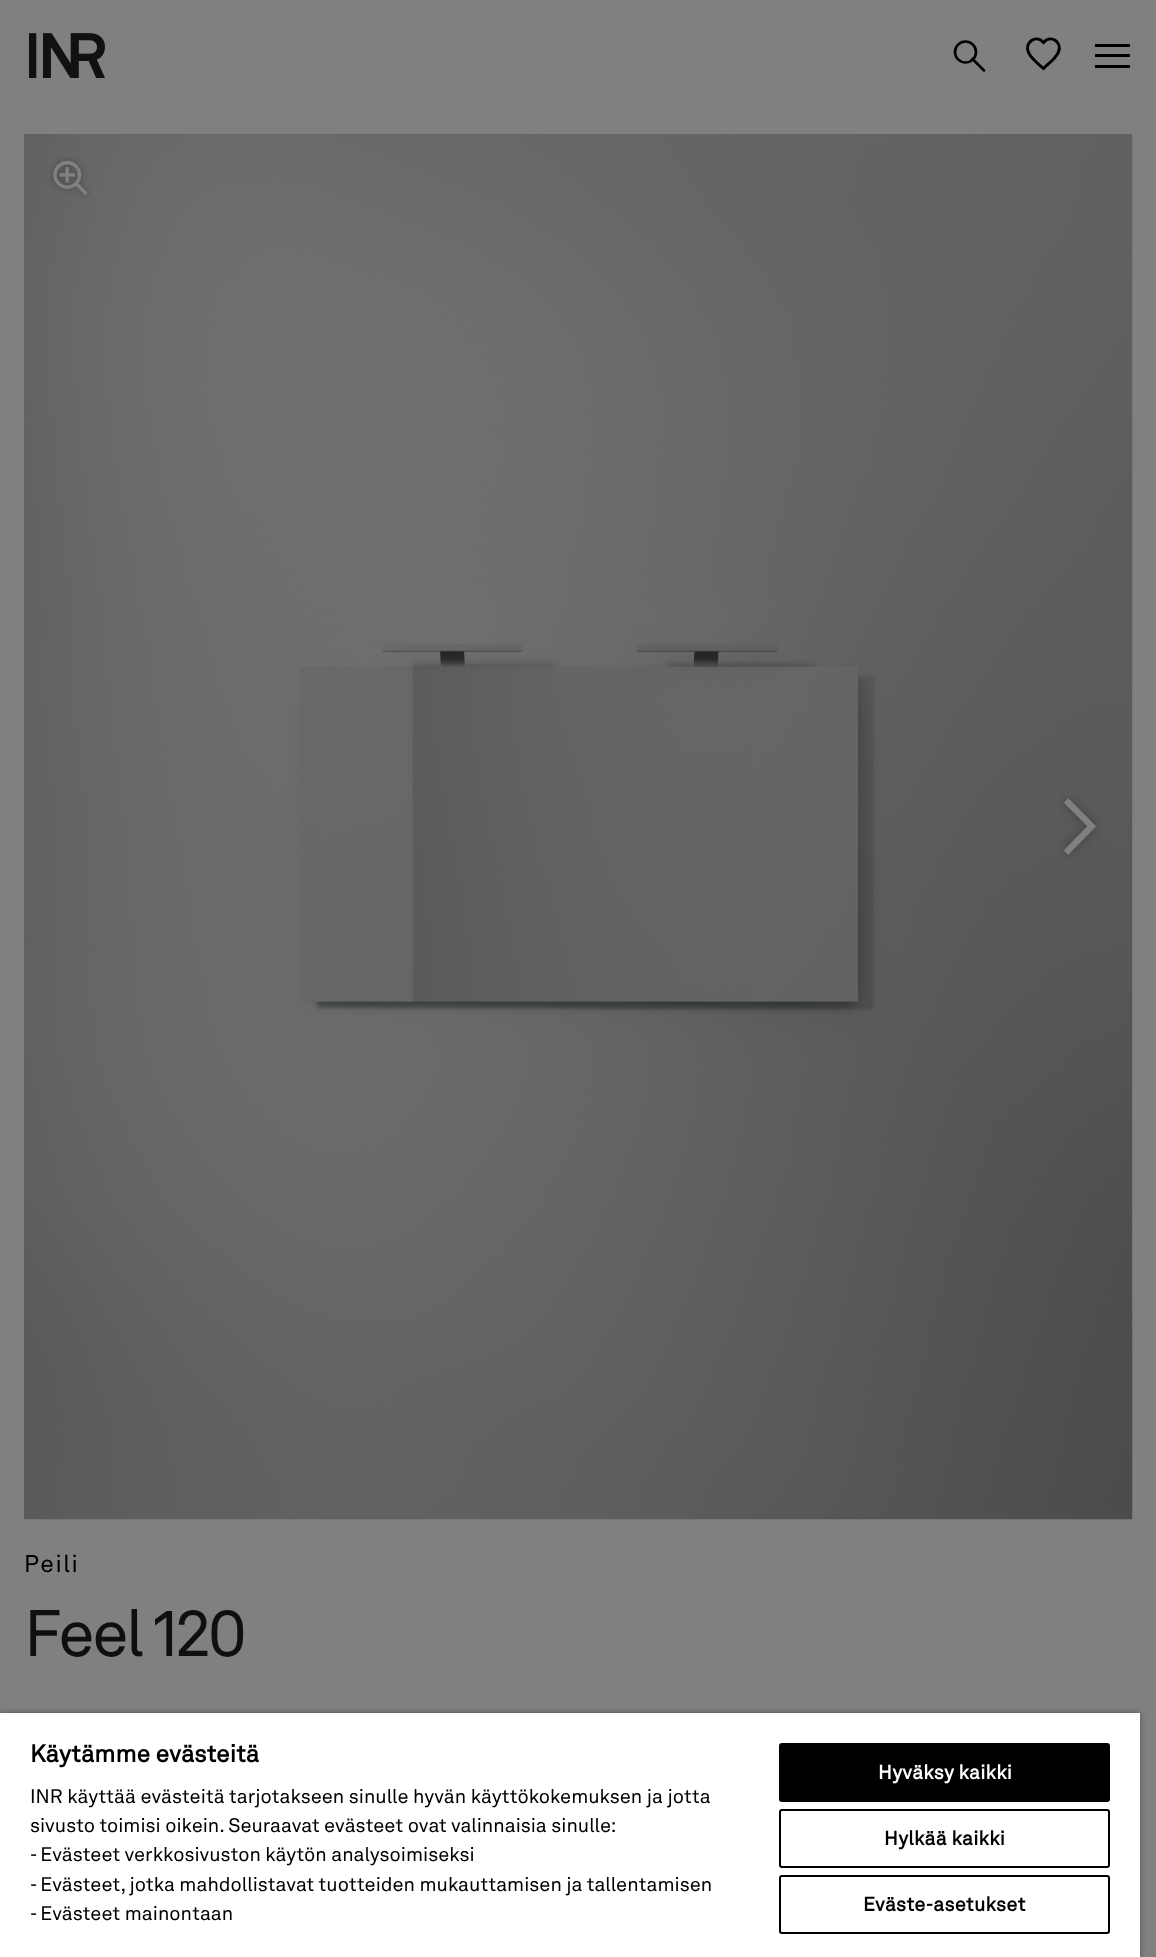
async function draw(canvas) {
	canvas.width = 1156;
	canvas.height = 1957;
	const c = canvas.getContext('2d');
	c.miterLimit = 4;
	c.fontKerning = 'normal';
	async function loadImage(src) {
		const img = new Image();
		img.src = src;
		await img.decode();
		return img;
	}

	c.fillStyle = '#808080';
	c.fillRect(0, 0, 1156, 1957);
	c.drawImage(await loadImage('img1.png'), 29, 33, 76, 45);
	c.beginPath();
	c.arc(965.5, 52, 10.5, 0, 2 * Math.PI);
	c.strokeStyle = '#000';
	c.lineWidth = 2.6;
	c.stroke();
	c.beginPath();
	c.moveTo(984, 70.5);
	c.lineTo(972.5, 59);
	c.lineCap = 'round';
	c.lineJoin = 'round';
	c.stroke();
	c.beginPath();
	c.moveTo(1043.5, 68.5);
	c.bezierCurveTo(1038.5, 64, 1031, 58.5, 1028.5, 52.5);
	c.bezierCurveTo(1024, 42, 1036.5, 34, 1043.5, 42.5);
	c.bezierCurveTo(1050.5, 34, 1062.5, 42, 1058.5, 52);
	c.bezierCurveTo(1056, 58, 1050, 62.5, 1045.5, 66.5);
	c.closePath();
	c.lineWidth = 3;
	c.lineCap = 'butt';
	c.lineJoin = 'miter';
	c.stroke();
	for (const [x, y, w, h, color] of [
		[1095, 44, 35, 3, '#000'],
		[1095, 54, 35, 3, '#000'],
		[1095, 65, 35, 3, '#000'],
	]) {
		c.fillStyle = color;
		c.fillRect(x, y, w, h);
	}
	c.drawImage(await loadImage('img2.png'), 24, 134, 1109, 1386);
	c.drawImage(await loadImage('img3.png'), 49, 157, 42, 41);
	c.drawImage(await loadImage('img4.png'), 1060, 795, 40, 63);
	c.letterSpacing = '1.5px';
	c.font = '24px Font';
	c.fillText('Peili', 24, 1572);
	c.letterSpacing = '-3px';
	c.font = '65px Font';
	c.fillStyle = '#0f0f0e';
	c.fillText('Feel 120', 24, 1656);
	c.fillStyle = '#00000059';
	c.filter = 'blur(3px)';
	c.beginPath();
	c.rect(0, 1713, 1140, 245);
	c.fill();
	c.filter = 'none';
	c.fillStyle = '#fff';
	c.fillRect(0, 1713, 1140, 244);
	c.letterSpacing = '0px';
	c.font = 'bold 24px Font';
	c.fillStyle = '#000';
	c.fillText('Käytämme evästeitä', 30, 1762);
	c.font = '19.5px Font';
	for (const [text, x, y] of [
		['INR käyttää evästeitä tarjotakseen sinulle hyvän käyttökokemuksen ja jotta', 30, 1803],
		['sivusto toimisi oikein. Seuraavat evästeet ovat valinnaisia sinulle:', 30, 1832],
		['- Evästeet verkkosivuston käytön analysoimiseksi', 30, 1861],
		['- Evästeet, jotka mahdollistavat tuotteiden mukauttamisen ja tallentamisen', 30, 1891],
		['- Evästeet mainontaan', 30, 1920],
	]) {
		c.fillText(text, x, y);
	}
	c.beginPath();
	c.roundRect(780, 1744, 329, 57, 2);
	c.fill();
	c.lineWidth = 2;
	c.stroke();
	c.letterSpacing = '0.25px';
	c.font = 'bold 19.5px Font';
	c.fillStyle = '#fff';
	c.fillText('Hyväksy kaikki', 878, 1779);
	c.beginPath();
	c.roundRect(780, 1810, 329, 57, 2);
	c.stroke();
	c.fillStyle = '#000';
	c.fillText('Hylkää kaikki', 884, 1845);
	c.beginPath();
	c.roundRect(780, 1876, 329, 57, 2);
	c.stroke();
	c.fillText('Eväste-asetukset', 863, 1911);
}

draw(document.querySelector('canvas'));
